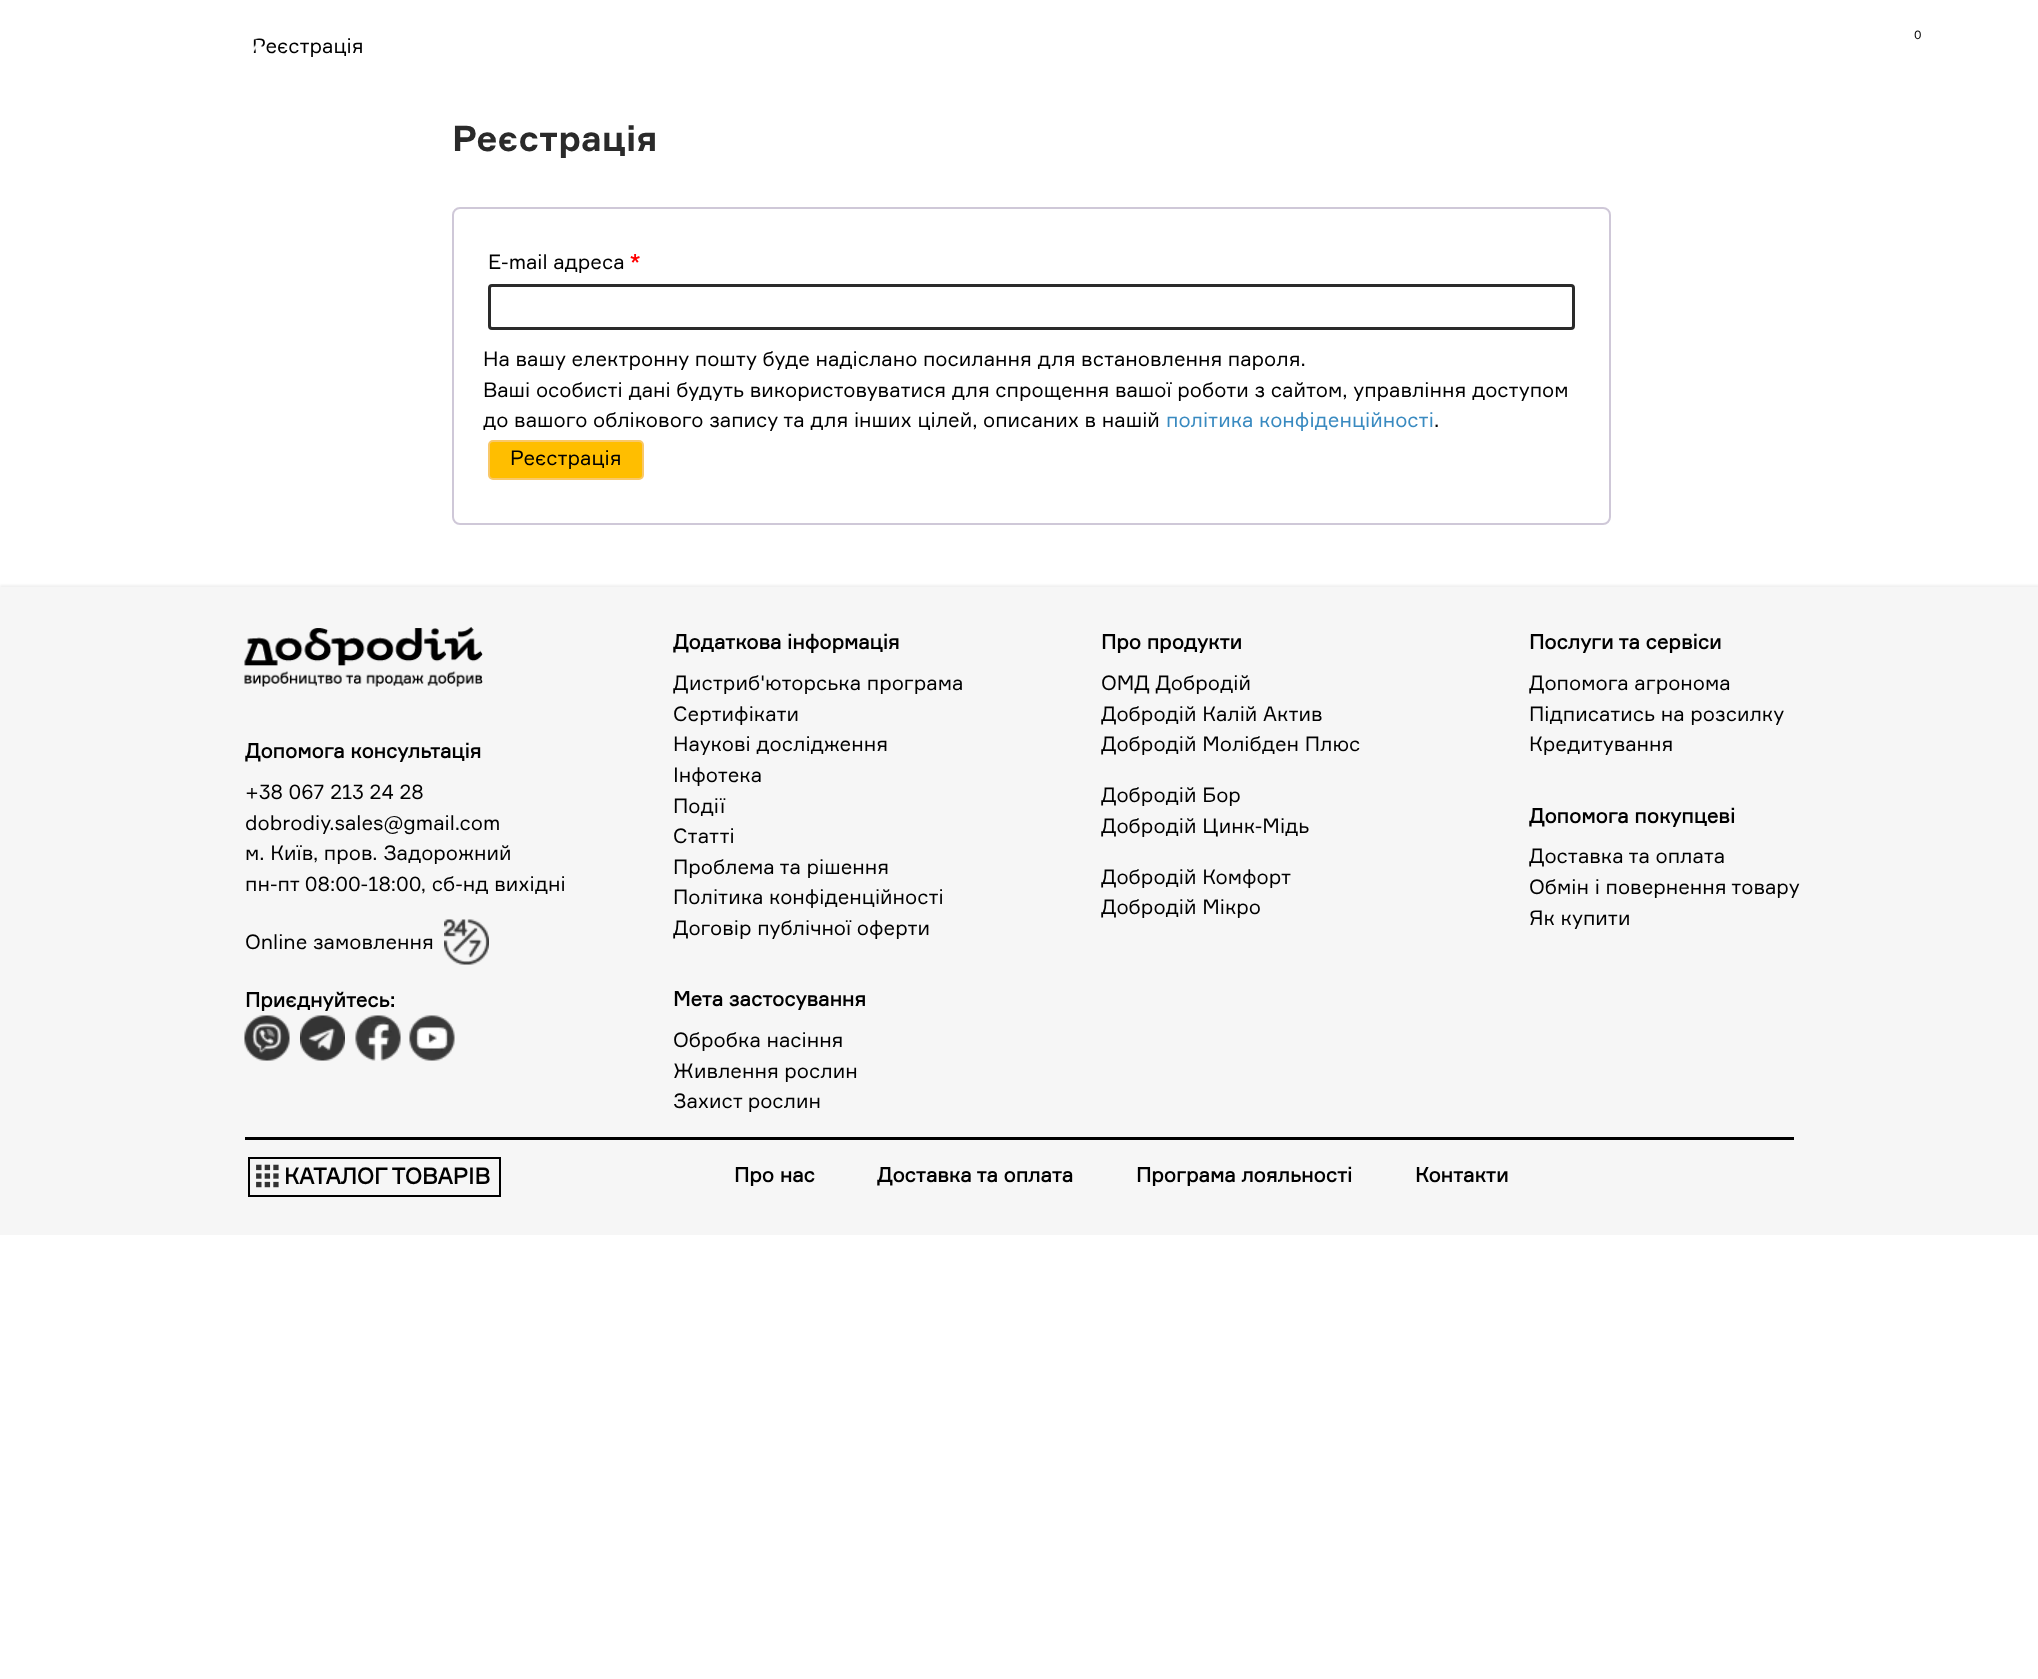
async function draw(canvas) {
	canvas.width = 2038;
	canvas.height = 1679;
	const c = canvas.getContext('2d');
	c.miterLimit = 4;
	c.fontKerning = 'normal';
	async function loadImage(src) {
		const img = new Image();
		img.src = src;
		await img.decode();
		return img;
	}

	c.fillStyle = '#fff';
	c.fillRect(0, 0, 2038, 1679);
	c.font = '12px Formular';
	c.fillStyle = '#000';
	c.fillText('0', 1914, 39);
	c.font = '20.38px Formular';
	c.fillText('Реєстрація', 252, 53);
	c.drawImage(await loadImage('img1.png'), 145, 38, 118, 16);
	c.font = 'bold 35.5px Formular';
	c.fillStyle = '#2a2a2a';
	c.fillText('Реєстрація', 452, 151);
	c.beginPath();
	c.roundRect(453, 208, 1157, 316, 7);
	c.strokeStyle = '#cfc8d8';
	c.lineWidth = 2;
	c.stroke();
	c.font = '20.38px Formular';
	c.fillStyle = '#000';
	c.fillText('E-mail адреса', 488, 269);
	c.font = 'bold 20.38px "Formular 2"';
	c.fillStyle = '#f00';
	c.fillText('*', 630, 269);
	c.beginPath();
	c.roundRect(489.5, 285.5, 1084, 43, 2.5);
	c.strokeStyle = '#2a2a2a';
	c.lineWidth = 3;
	c.stroke();
	c.font = '20.38px Formular';
	c.fillStyle = '#000';
	for (const [text, x, y] of [
		['На вашу електронну пошту буде надіслано посилання для встановлення пароля.', 483, 366],
		['Ваші особисті дані будуть використовуватися для спрощення вашої роботи з сайтом, управління доступом', 483, 397],
		['до вашого облікового запису та для інших цілей, описаних в нашій', 483, 427],
	]) {
		c.fillText(text, x, y);
	}
	c.fillStyle = '#398ac0';
	c.fillText('політика конфіденційності', 1166, 427);
	c.fillStyle = '#000';
	c.fillText('.', 1434, 427);
	c.fillStyle = '#ffbe00';
	c.beginPath();
	c.roundRect(489, 441, 154, 38, 4);
	c.fill();
	c.strokeStyle = '#f9c869';
	c.lineWidth = 2;
	c.stroke();
	c.fillStyle = '#000';
	c.fillText('Реєстрація', 510, 465);
	c.fillStyle = '#0000000f';
	c.filter = 'blur(1px)';
	c.beginPath();
	c.rect(0, 585, 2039, 648);
	c.fill();
	c.filter = 'none';
	c.fillStyle = '#f6f6f6';
	c.fillRect(0, 587, 2038, 648);
	c.drawImage(await loadImage('img2.png'), 244, 627, 239, 60);
	c.font = 'bold 20.38px "Formular 2"';
	c.fillStyle = '#000';
	c.fillText('Допомога консультація', 245, 758);
	c.font = '20.38px Formular';
	for (const [text, x, y] of [
		['+38 067 213 24 28', 245, 799],
		['dobrodiy.sales@gmail.com', 245, 830],
		['м. Київ, пров. Задорожний', 245, 860],
		['пн-пт 08:00-18:00, сб-нд вихідні', 245, 891],
		['Online замовлення', 245, 949],
	]) {
		c.fillText(text, x, y);
	}
	c.drawImage(await loadImage('img3.png'), 444, 919, 45, 46);
	c.font = 'bold 20.38px "Formular 2"';
	c.fillText('Приєднуйтесь:', 245, 1007);
	c.drawImage(await loadImage('img4.png'), 244, 1015, 46, 46);
	c.drawImage(await loadImage('img5.png'), 300, 1015, 45, 46);
	c.drawImage(await loadImage('img6.png'), 355, 1015, 46, 46);
	c.drawImage(await loadImage('img7.png'), 409, 1015, 46, 46);
	c.fillText('Додаткова інформація', 673, 649);
	c.font = '20.38px Formular';
	for (const [text, x, y] of [
		['Дистриб\'юторська програма', 673, 690],
		['Сертифікати', 673, 721],
		['Наукові дослідження', 673, 751],
		['Інфотека', 673, 782],
		['Події', 673, 813],
		['Статті', 673, 843],
		['Проблема та рішення', 673, 874],
		['Політика конфіденційності', 673, 904],
		['Договір публічної оферти', 673, 935],
	]) {
		c.fillText(text, x, y);
	}
	c.font = 'bold 20.38px "Formular 2"';
	c.fillText('Мета застосування', 673, 1006);
	c.font = '20.38px Formular';
	for (const [text, x, y] of [
		['Обробка насіння', 673, 1047],
		['Живлення рослин', 673, 1078],
		['Захист рослин', 673, 1108],
	]) {
		c.fillText(text, x, y);
	}
	c.font = 'bold 20.38px "Formular 2"';
	c.fillText('Про продукти', 1101, 649);
	c.font = '20.38px Formular';
	for (const [text, x, y] of [
		['ОМД Добродій', 1101, 690],
		['Добродій Калій Актив', 1101, 721],
		['Добродій Молібден Плюс', 1101, 751],
		['Добродій Бор', 1101, 802],
		['Добродій Цинк-Мідь', 1101, 833],
		['Добродій Комфорт', 1101, 884],
		['Добродій Мікро', 1101, 914],
	]) {
		c.fillText(text, x, y);
	}
	c.font = 'bold 20.38px "Formular 2"';
	c.fillText('Послуги та сервіси', 1529, 649);
	c.font = '20.38px Formular';
	for (const [text, x, y] of [
		['Допомога агронома', 1529, 690],
		['Підписатись на розсилку', 1529, 721],
		['Кредитування', 1529, 751],
	]) {
		c.fillText(text, x, y);
	}
	c.font = 'bold 20.38px "Formular 2"';
	c.fillText('Допомога покупцеві', 1529, 823);
	c.font = '20.38px Formular';
	for (const [text, x, y] of [
		['Доставка та оплата', 1529, 863],
		['Обмін і повернення товару', 1529, 894],
		['Як купити', 1529, 925],
	]) {
		c.fillText(text, x, y);
	}
	c.fillRect(245, 1137, 1549, 3);
	c.drawImage(await loadImage('img8.png'), 256, 1164, 23, 24);
	c.strokeStyle = '#000';
	c.strokeRect(249, 1158, 251, 38);
	c.font = 'bold 22.25px "Formular 2"';
	c.fillText('КАТАЛОГ ТОВАРІВ', 284, 1184);
	c.font = 'bold 20.38px "Formular 2"';
	for (const [text, x, y] of [
		['Про нас', 734, 1182],
		['Доставка та оплата', 877, 1182],
		['Програма лояльності', 1136, 1182],
		['Контакти', 1415, 1182],
	]) {
		c.fillText(text, x, y);
	}
}

draw(document.querySelector('canvas'));
